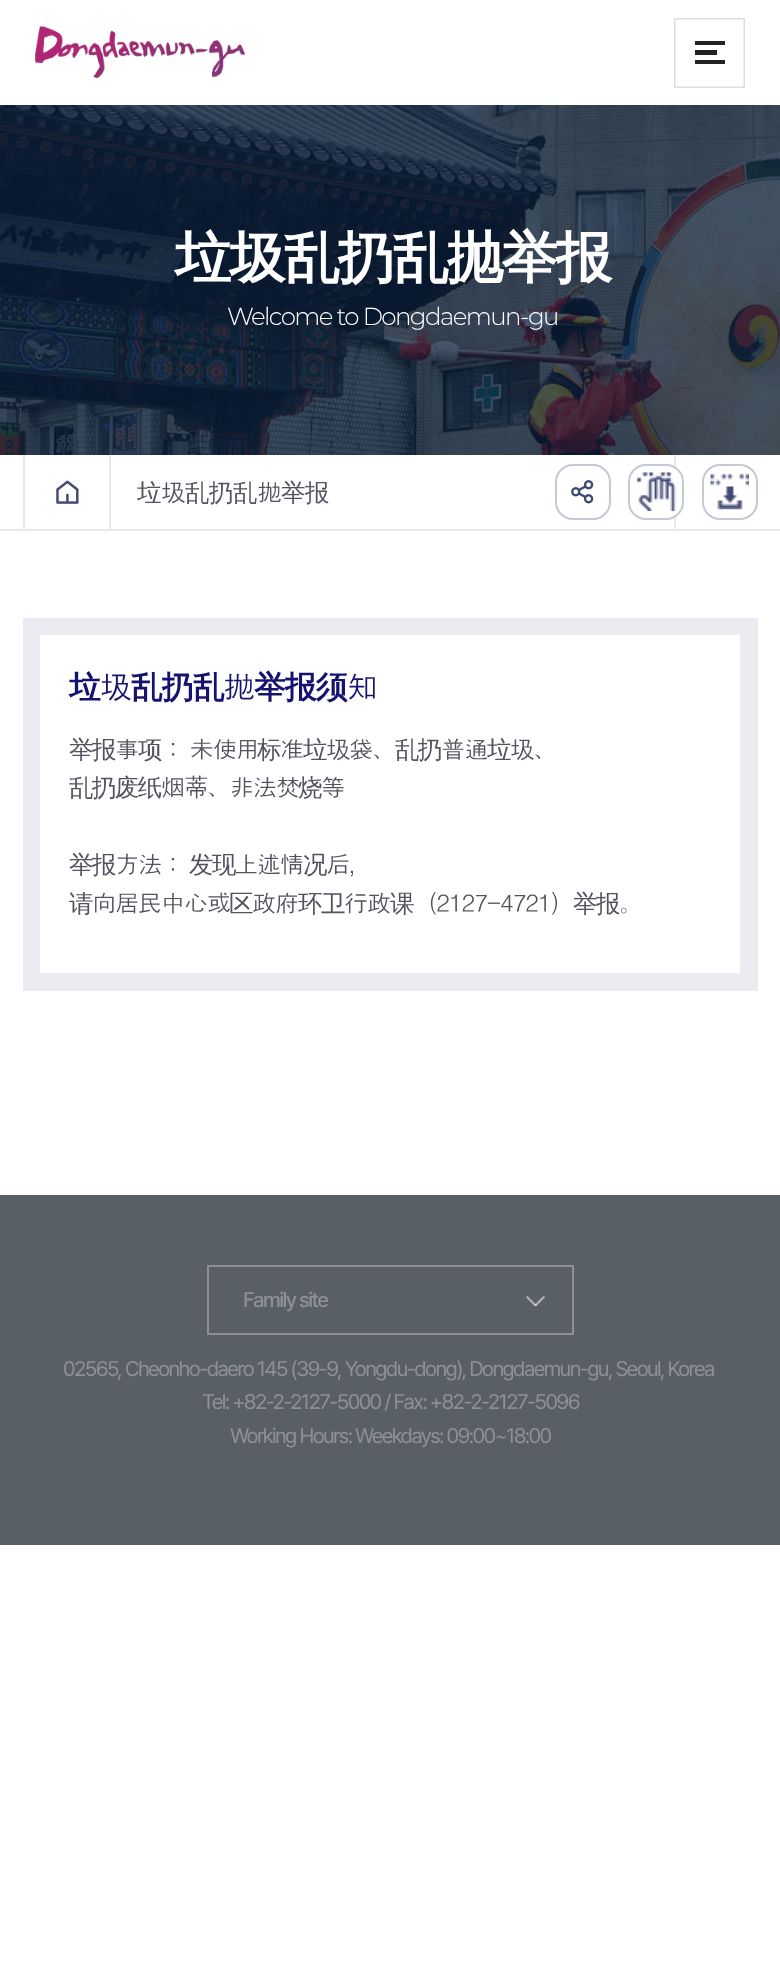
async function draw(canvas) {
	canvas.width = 780;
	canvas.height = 1972;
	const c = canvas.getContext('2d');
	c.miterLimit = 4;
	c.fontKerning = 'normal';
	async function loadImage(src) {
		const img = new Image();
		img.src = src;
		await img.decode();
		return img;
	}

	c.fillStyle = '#fff';
	c.fillRect(0, 0, 780, 1972);
	c.drawImage(await loadImage('img1.png'), 35, 26, 210, 53);
	c.strokeStyle = '#ddd';
	c.lineWidth = 1.5;
	c.strokeRect(674.75, 18.75, 69.5, 68.5);
	for (const [x, y, w, h, color] of [
		[695, 41, 30, 4, '#222'],
		[695, 60, 30, 4, '#222'],
		[695, 50, 22, 5, '#222'],
	]) {
		c.fillStyle = color;
		c.fillRect(x, y, w, h);
	}
	c.drawImage(await loadImage('img2.png'), 0, 105, 780, 350);
	c.letterSpacing = '-1.57px';
	c.font = 'bold 56px WenQuanYi Zen Hei';
	c.fillStyle = '#fff';
	c.fillText('垃圾乱扔乱抛举报', 175, 277);
	c.font = '300 24.5px Montserrat';
	c.fillText('Welcome to Dongdaemun-gu', 227, 325);
	for (const [x, y, w, h, color] of [
		[0, 529, 780, 2, '#e7e8ec'],
		[109, 455, 2, 74, '#e7e8ec'],
		[23, 455, 2, 74, '#e7e8ec'],
	]) {
		c.fillStyle = color;
		c.fillRect(x, y, w, h);
	}
	c.drawImage(await loadImage('img3.png'), 56, 480, 23, 24);
	c.fillRect(674, 455, 2, 74);
	c.letterSpacing = '-0.5px';
	c.font = '500 24.5px WenQuanYi Zen Hei';
	c.fillStyle = '#52535e';
	c.fillText('垃', 137, 501);
	c.font = '24.5px Dotum';
	c.fillText('圾', 161, 501);
	c.font = '500 24.5px WenQuanYi Zen Hei';
	c.fillText('乱扔乱', 185, 501);
	c.font = '24.5px Dotum';
	c.fillText('抛', 257, 501);
	c.font = '500 24.5px WenQuanYi Zen Hei';
	c.fillText('举报', 281, 501);
	c.beginPath();
	c.roundRect(556, 465, 54, 54, 17);
	c.strokeStyle = '#c5c9d6';
	c.lineWidth = 2;
	c.stroke();
	c.drawImage(await loadImage('img4.png'), 571, 480, 23, 24);
	c.fillStyle = '#fff';
	c.beginPath();
	c.roundRect(629, 465, 54, 54, 17);
	c.fill();
	c.stroke();
	c.drawImage(await loadImage('img5.png'), 637, 472, 39, 39);
	c.beginPath();
	c.roundRect(703, 465, 54, 54, 17);
	c.stroke();
	c.drawImage(await loadImage('img6.png'), 710, 474, 39, 36);
	c.strokeStyle = '#ebecf2';
	c.lineWidth = 18;
	c.strokeRect(32, 627, 717, 355);
	c.fillRect(40, 635, 700, 338);
	c.font = 'bold 31.5px WenQuanYi Zen Hei';
	c.fillStyle = '#161270';
	c.fillText('垃', 69, 698);
	c.font = '31.5px Dotum';
	c.fillText('圾', 100, 698);
	c.font = 'bold 31.5px WenQuanYi Zen Hei';
	c.fillText('乱扔乱', 131, 698);
	c.font = '31.5px Dotum';
	c.fillText('抛', 223, 698);
	c.font = 'bold 31.5px WenQuanYi Zen Hei';
	c.fillText('举报须', 254, 698);
	c.font = '31.5px Dotum';
	c.fillText('知', 347, 698);
	c.letterSpacing = '-1.57px';
	c.font = '500 24.5px WenQuanYi Zen Hei';
	c.fillStyle = '#52535e';
	c.fillText('举报', 69, 758);
	c.font = '24.5px Dotum';
	c.fillText('事', 115, 758);
	c.font = '500 24.5px WenQuanYi Zen Hei';
	c.fillText('项', 138, 758);
	c.wordSpacing = '-1px';
	c.font = '24.5px Dotum';
	c.fillText('： 未使用', 161, 758);
	c.wordSpacing = '0px';
	c.font = '500 24.5px WenQuanYi Zen Hei';
	c.fillText('标', 257, 758);
	c.font = '24.5px Dotum';
	c.fillText('准', 280, 758);
	c.font = '500 24.5px WenQuanYi Zen Hei';
	c.fillText('垃', 303, 758);
	c.font = '24.5px Dotum';
	c.fillText('圾袋、', 326, 758);
	c.font = '500 24.5px WenQuanYi Zen Hei';
	c.fillText('乱扔', 395, 758);
	c.font = '24.5px Dotum';
	c.fillText('普通', 441, 758);
	c.font = '500 24.5px WenQuanYi Zen Hei';
	c.fillText('垃', 487, 758);
	c.font = '24.5px Dotum';
	c.fillText('圾、', 510, 758);
	c.font = '500 24.5px WenQuanYi Zen Hei';
	c.fillText('乱扔废纸', 69, 796);
	c.font = '24.5px Dotum';
	c.fillText('烟蒂、非法焚', 161, 796);
	c.font = '500 24.5px WenQuanYi Zen Hei';
	c.fillText('烧', 298, 796);
	c.font = '24.5px Dotum';
	c.fillText('等', 321, 796);
	c.font = '500 24.5px WenQuanYi Zen Hei';
	c.fillText('举报', 69, 873);
	c.font = '24.5px Dotum';
	c.fillText('方法：', 115, 873);
	c.font = '500 24.5px WenQuanYi Zen Hei';
	c.fillText('发现', 189, 873);
	c.font = '24.5px Dotum';
	c.fillText('上述情', 234, 873);
	c.font = '500 24.5px WenQuanYi Zen Hei';
	c.fillText('况', 303, 873);
	c.font = '24.5px Dotum';
	c.fillText('后，', 326, 873);
	c.font = '500 24.5px WenQuanYi Zen Hei';
	c.fillText('请', 69, 912);
	c.font = '24.5px Dotum';
	c.fillText('向居民中心或', 92, 912);
	c.font = '500 24.5px WenQuanYi Zen Hei';
	c.fillText('区', 229, 912);
	c.font = '24.5px Dotum';
	c.fillText('政府', 252, 912);
	c.font = '500 24.5px WenQuanYi Zen Hei';
	c.fillText('环卫', 298, 912);
	c.font = '24.5px Dotum';
	c.fillText('行政', 344, 912);
	c.font = '500 24.5px WenQuanYi Zen Hei';
	c.fillText('课', 390, 912);
	c.font = '24.5px Dotum';
	c.fillText('（2127-4721）', 413, 912);
	c.font = '500 24.5px WenQuanYi Zen Hei';
	c.fillText('举报', 573, 912);
	c.font = '24.5px Dotum';
	c.fillText('。', 619, 912);
	c.fillStyle = '#595f66';
	c.fillRect(0, 1195, 780, 350);
	c.strokeStyle = '#8d9196';
	c.lineWidth = 2;
	c.strokeRect(208, 1266, 365, 68);
	c.font = '500 21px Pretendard';
	c.fillStyle = '#8d9196';
	c.fillText('Family site', 243, 1307);
	c.drawImage(await loadImage('img7.png'), 526, 1296, 19, 10);
	c.font = '21px Pretendard';
	for (const [text, x, y] of [
		['02565, Cheonho-daero 145 (39-9, Yongdu-dong), Dongdaemun-gu, Seoul, Korea', 63, 1376],
		['Tel: +82-2-2127-5000 / Fax: +82-2-2127-5096', 202, 1409],
		['Working Hours: Weekdays: 09:00~18:00', 230, 1443],
	]) {
		c.fillText(text, x, y);
	}
}

draw(document.querySelector('canvas'));
